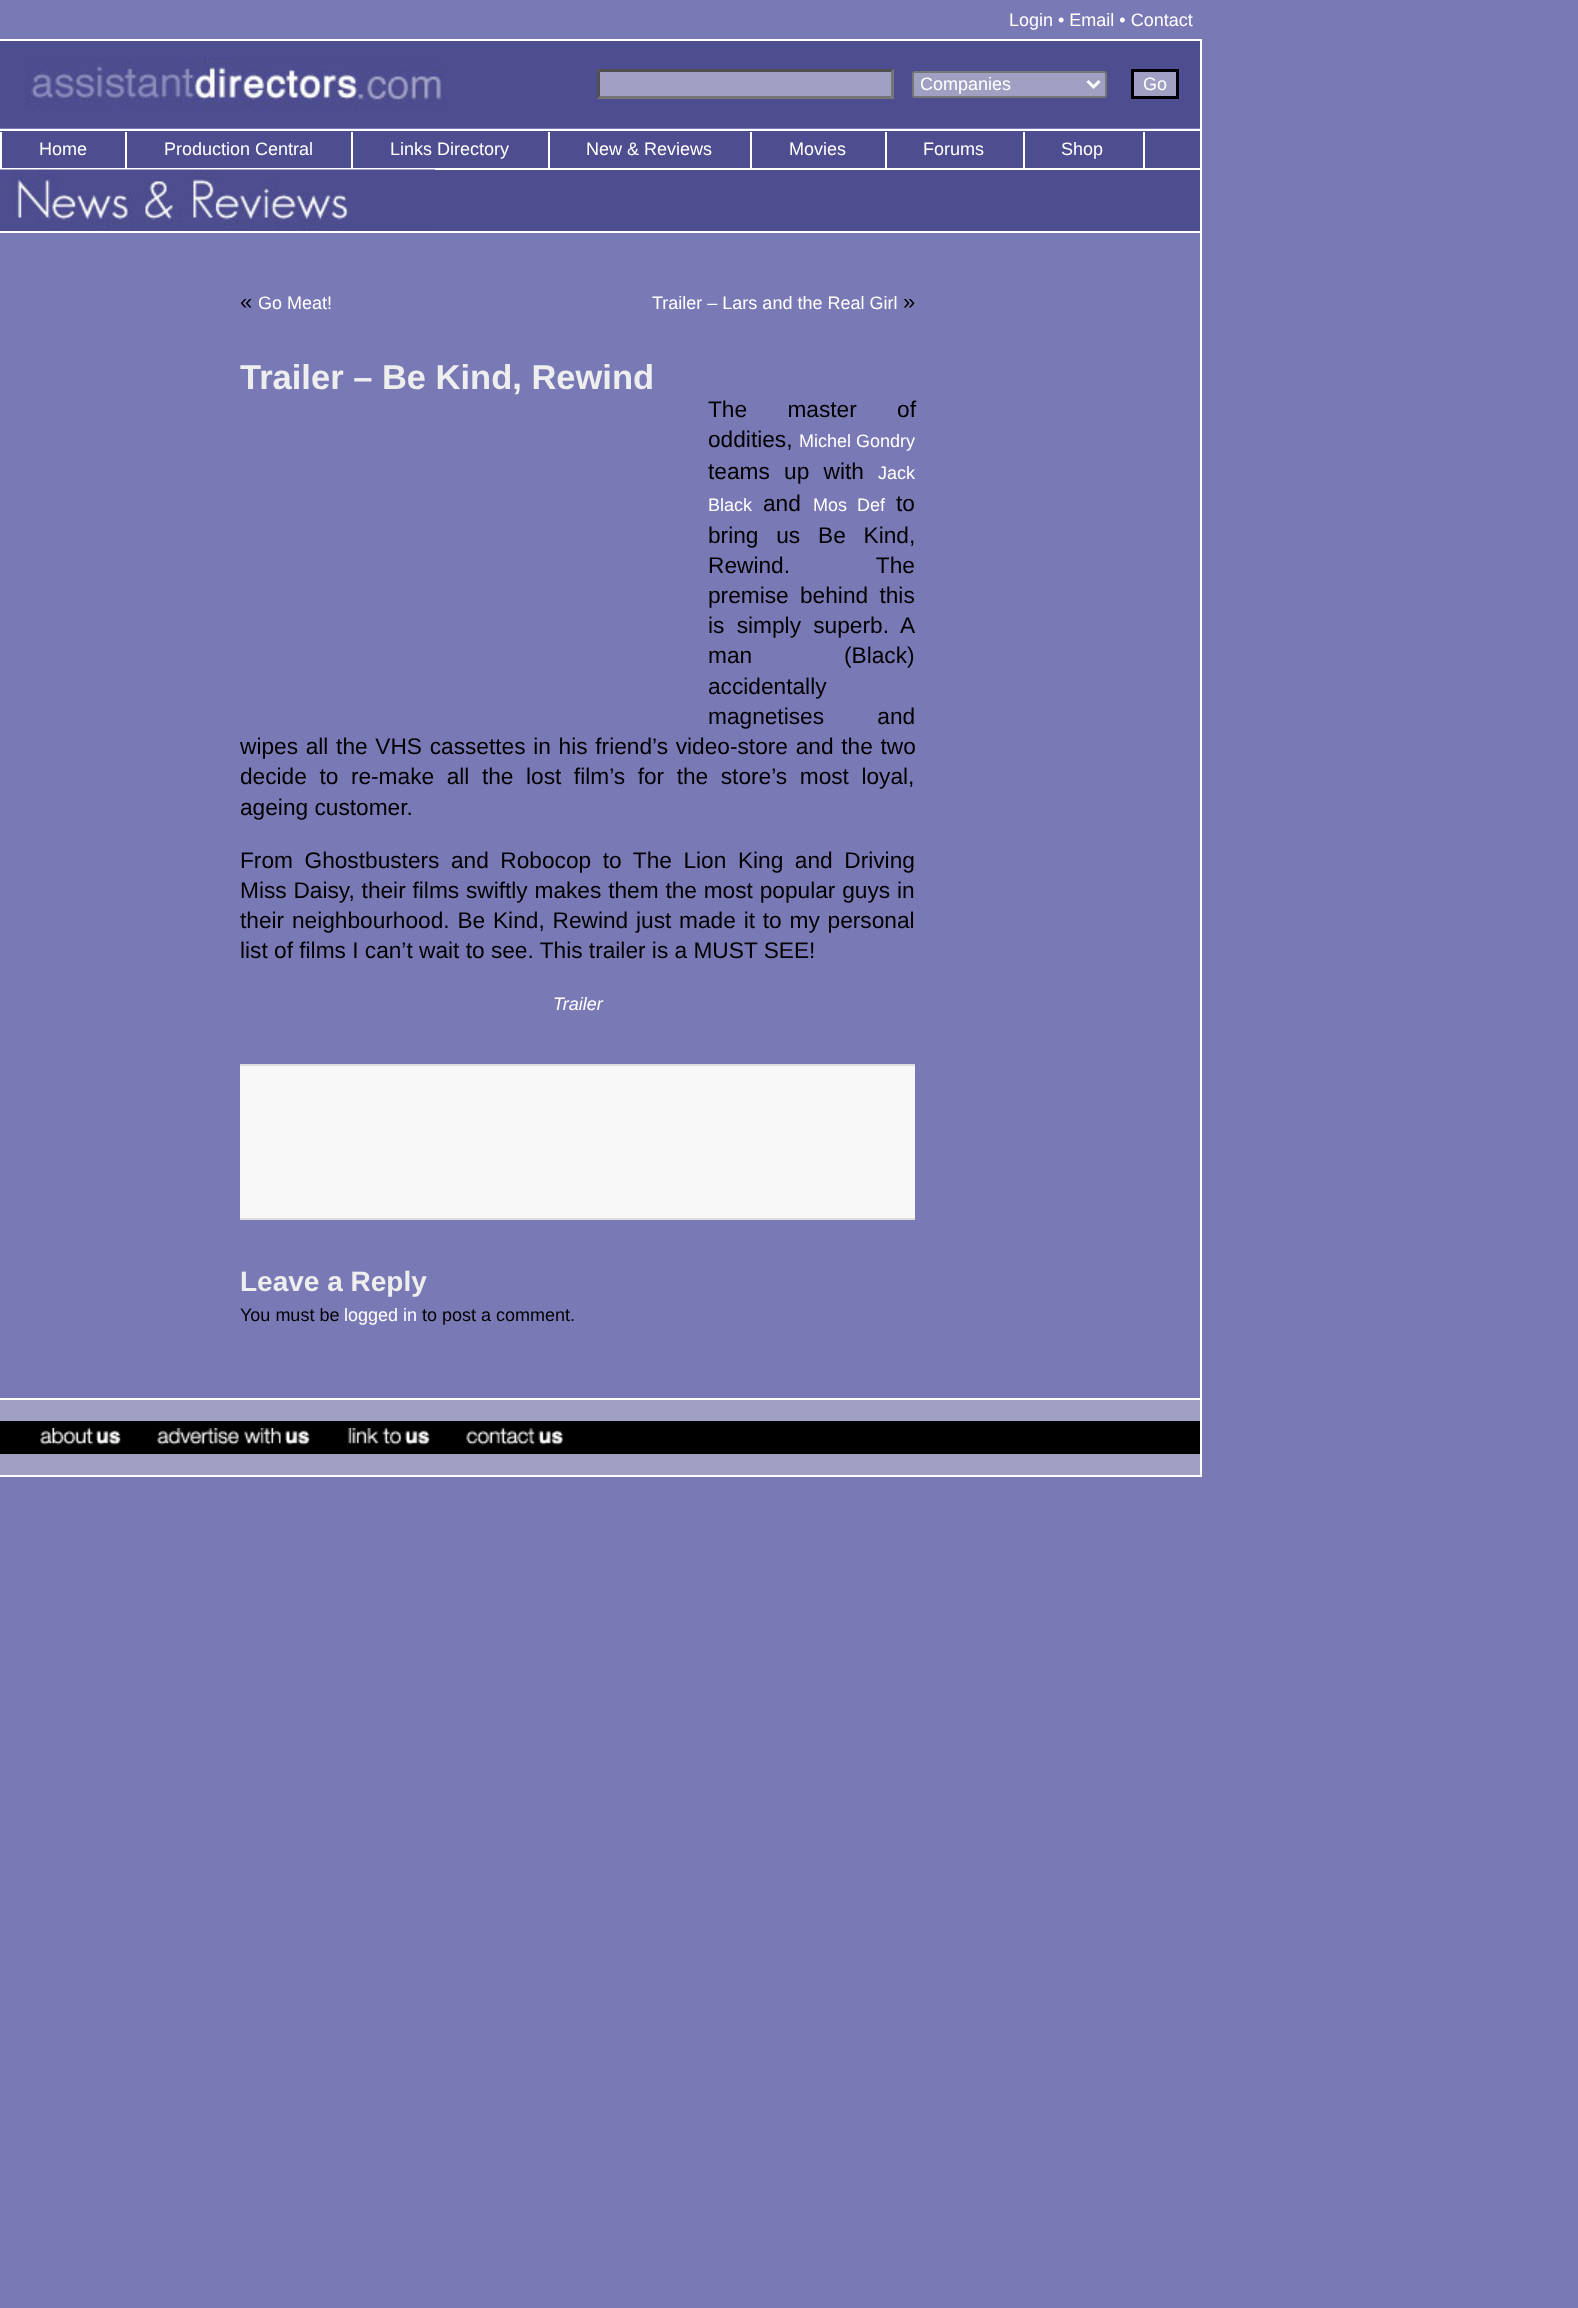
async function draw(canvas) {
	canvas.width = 1578;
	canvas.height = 2308;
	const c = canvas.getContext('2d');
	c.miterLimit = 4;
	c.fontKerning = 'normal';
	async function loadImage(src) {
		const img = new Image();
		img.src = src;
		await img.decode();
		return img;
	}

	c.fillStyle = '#7979b5';
	c.fillRect(0, 0, 1578, 2308);
	c.font = '18px Liberation Sans';
	c.fillStyle = '#fff';
	c.fillText('Login • Email • Contact', 1009, 26);
	for (const [x, y, w, h, color] of [
		[0, 39, 1202, 2, '#fff'],
		[1200, 39, 2, 1437, '#fff'],
		[0, 1475, 1202, 2, '#fff'],
		[0, 129, 1200, 2, '#fff'],
		[0, 41, 1200, 87, '#4d4d8f'],
	]) {
		c.fillStyle = color;
		c.fillRect(x, y, w, h);
	}
	c.drawImage(await loadImage('img1.png'), 25, 58, 419, 49);
	c.fillStyle = '#a0a0c3';
	c.fillRect(597, 69, 297, 30);
	c.fillStyle = '#4f4f4f';
	c.beginPath();
	c.moveTo(597, 69);
	c.lineTo(894, 69);
	c.lineTo(891, 72);
	c.lineTo(600, 72);
	c.closePath();
	c.fill();
	c.fillStyle = '#767676';
	c.beginPath();
	c.moveTo(894, 69);
	c.lineTo(894, 99);
	c.lineTo(891, 96);
	c.lineTo(891, 72);
	c.closePath();
	c.fill();
	c.beginPath();
	c.moveTo(894, 99);
	c.lineTo(597, 99);
	c.lineTo(600, 96);
	c.lineTo(891, 96);
	c.closePath();
	c.fill();
	c.fillStyle = '#4f4f4f';
	c.beginPath();
	c.moveTo(597, 99);
	c.lineTo(597, 69);
	c.lineTo(600, 72);
	c.lineTo(600, 96);
	c.closePath();
	c.fill();
	c.fillStyle = '#a0a0c3';
	c.beginPath();
	c.roundRect(913, 72, 193, 25, 2);
	c.fill();
	c.strokeStyle = '#767676';
	c.lineWidth = 2;
	c.stroke();
	c.beginPath();
	c.moveTo(1087.5, 81);
	c.lineTo(1093.5, 87);
	c.lineTo(1099.5, 81);
	c.strokeStyle = '#fff';
	c.lineWidth = 3;
	c.stroke();
	c.fillStyle = '#fff';
	c.fillText('Companies', 920, 90);
	c.fillStyle = '#a0a0c3';
	c.beginPath();
	c.rect(1132.5, 70.5, 45, 27);
	c.fill();
	c.strokeStyle = '#000';
	c.stroke();
	c.fillStyle = '#fff';
	c.fillText('Go', 1143, 90);
	c.fillStyle = '#4d4d8f';
	c.fillRect(0, 131, 1200, 37);
	c.fillStyle = '#fff';
	c.fillRect(0, 168, 1200, 2);
	c.fillText('Home', 39, 155);
	c.fillRect(0, 132, 2, 36);
	c.fillText('Production Central', 164, 155);
	c.fillRect(125, 132, 2, 36);
	c.fillText('Links Directory', 390, 155);
	c.fillRect(351, 132, 2, 36);
	c.fillText('New & Reviews', 586, 155);
	c.fillRect(548, 132, 2, 36);
	c.fillText('Movies', 789, 155);
	c.fillRect(750, 132, 2, 36);
	c.fillText('Forums', 923, 155);
	c.fillRect(885, 132, 2, 36);
	c.fillText('Shop', 1061, 155);
	for (const [x, y, w, h, color] of [
		[1143, 132, 2, 36, '#fff'],
		[1023, 132, 2, 36, '#fff'],
		[0, 1398, 1200, 2, '#fff'],
		[0, 170, 1200, 61, '#4d4d8f'],
		[0, 231, 1200, 2, '#fff'],
	]) {
		c.fillStyle = color;
		c.fillRect(x, y, w, h);
	}
	c.drawImage(await loadImage('img2.png'), 0, 169, 435, 61);
	c.font = '22px Liberation Sans';
	c.fillStyle = '#000';
	c.fillText('«', 240, 309);
	c.font = '18px Liberation Sans';
	c.fillStyle = '#fff';
	c.fillText('Go Meat!', 258, 309);
	c.fillText('Trailer – Lars and the Real Girl', 652, 309);
	c.font = '22px Liberation Sans';
	c.fillStyle = '#000';
	c.fillText('»', 903, 309);
	c.font = 'bold 34.5px Liberation Sans';
	c.fillStyle = '#eee';
	c.fillText('Trailer – Be Kind, Rewind', 240, 389);
	c.wordSpacing = '34px';
	c.font = '22.7px Liberation Sans';
	c.fillStyle = '#000';
	c.fillText('The master of', 708, 417);
	c.wordSpacing = '0px';
	c.fillText('oddities,', 708, 447);
	c.font = '18px Liberation Sans';
	c.fillStyle = '#fff';
	c.fillText('Michel Gondry', 799, 447);
	c.wordSpacing = '8px';
	c.font = '22.7px Liberation Sans';
	c.fillStyle = '#000';
	c.fillText('teams up with', 708, 479);
	c.wordSpacing = '0px';
	c.font = '18px Liberation Sans';
	c.fillStyle = '#fff';
	c.fillText('Jack', 878, 479);
	c.fillText('Black', 708, 511);
	c.font = '22.7px Liberation Sans';
	c.fillStyle = '#000';
	c.fillText('and', 763, 511);
	c.wordSpacing = '5px';
	c.font = '18px Liberation Sans';
	c.fillStyle = '#fff';
	c.fillText('Mos Def', 813, 511);
	c.wordSpacing = '0px';
	c.font = '22.7px Liberation Sans';
	c.fillStyle = '#000';
	c.fillText('to', 896, 511);
	c.wordSpacing = '11.5px';
	c.fillText('bring us Be Kind,', 708, 543);
	c.wordSpacing = '80px';
	c.fillText('Rewind. The', 708, 573);
	c.wordSpacing = '5px';
	c.fillText('premise behind this', 708, 603);
	c.wordSpacing = '6px';
	c.fillText('is simply superb. A', 708, 633);
	c.wordSpacing = '0px';
	for (const [text, x, y] of [
		['man', 708, 663],
		['(Black)', 844, 663],
		['accidentally', 708, 694],
	]) {
		c.fillText(text, x, y);
	}
	c.wordSpacing = '47px';
	c.fillText('magnetises and', 708, 724);
	c.wordSpacing = '1.4px';
	c.fillText('wipes all the VHS cassettes in his friend’s video-store and the two', 240, 754);
	c.wordSpacing = '6.25px';
	c.fillText('decide to re-make all the lost film’s for the store’s most loyal,', 240, 784);
	c.wordSpacing = '0px';
	c.fillText('ageing customer.', 240, 815);
	c.wordSpacing = '5.25px';
	c.fillText('From Ghostbusters and Robocop to The Lion King and Driving', 240, 868);
	c.wordSpacing = '0.5px';
	c.fillText('Miss Daisy, their films swiftly makes them the most popular guys in', 240, 898);
	c.wordSpacing = '1.5px';
	c.fillText('their neighbourhood. Be Kind, Rewind just made it to my personal', 240, 928);
	c.wordSpacing = '0px';
	c.fillText('list of films I can’t wait to see. This trailer is a MUST SEE!', 240, 958);
	c.font = 'italic 18px Liberation Sans';
	c.fillStyle = '#fff';
	c.fillText('Trailer', 553, 1010);
	for (const [x, y, w, h, color] of [
		[240, 1066, 675, 152, '#f8f8f8'],
		[240, 1064, 675, 2, '#ddd'],
		[240, 1218, 675, 2, '#ddd'],
	]) {
		c.fillStyle = color;
		c.fillRect(x, y, w, h);
	}
	c.font = 'bold 28px Liberation Sans';
	c.fillStyle = '#eee';
	c.fillText('Leave a Reply', 240, 1291);
	c.font = '18px Liberation Sans';
	c.fillStyle = '#000';
	c.fillText('You must be', 240, 1321);
	c.fillStyle = '#fff';
	c.fillText('logged in', 344, 1321);
	c.fillStyle = '#000';
	c.fillText('to post a comment.', 422, 1321);
	c.fillStyle = '#a0a0c3';
	c.fillRect(0, 1400, 1200, 21);
	c.fillStyle = '#000';
	c.fillRect(0, 1421, 1200, 33);
	c.drawImage(await loadImage('img3.png'), 40, 1428, 81, 17);
	c.drawImage(await loadImage('img4.png'), 157, 1428, 153, 17);
	c.drawImage(await loadImage('img5.png'), 347, 1428, 83, 17);
	c.drawImage(await loadImage('img6.png'), 466, 1428, 97, 17);
	c.fillStyle = '#a0a0c3';
	c.fillRect(0, 1454, 1200, 21);
}

draw(document.querySelector('canvas'));
